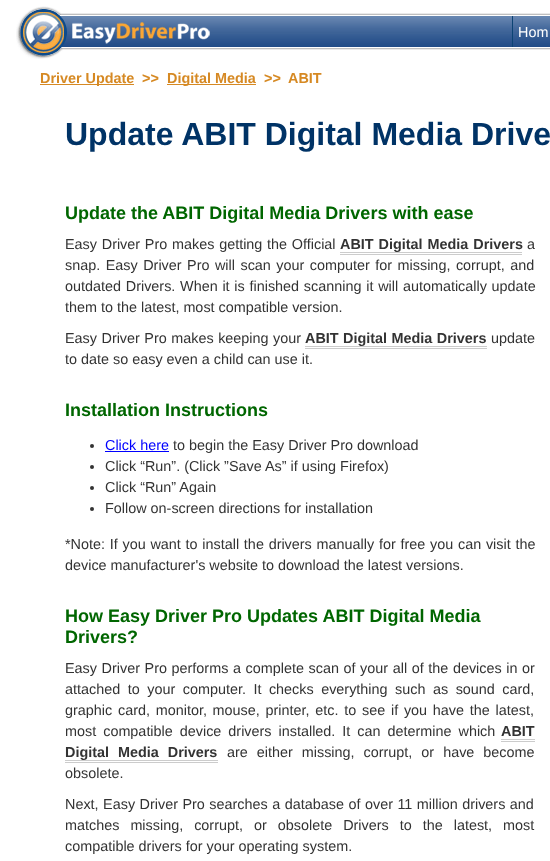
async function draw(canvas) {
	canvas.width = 550;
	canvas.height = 861;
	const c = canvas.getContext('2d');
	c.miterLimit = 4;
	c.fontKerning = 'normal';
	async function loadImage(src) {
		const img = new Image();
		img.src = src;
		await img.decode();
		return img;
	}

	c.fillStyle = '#fff';
	c.fillRect(0, 0, 550, 861);
	c.drawImage(await loadImage('img1.png'), 16, 6, 534, 53);
	c.fillStyle = '#0c4374';
	c.fillRect(512, 16, 1, 31);
	c.font = '14.4px Liberation Sans';
	c.fillStyle = '#fff';
	c.fillText('Hom', 518, 37);
	c.fillStyle = '#d68923';
	c.fillRect(40, 84, 94, 1);
	c.font = 'bold 14.4px Liberation Sans';
	c.fillText('Driver Update', 40, 83);
	c.fillText('>>', 142, 83);
	c.fillRect(167, 84, 89, 1);
	for (const [text, x, y] of [
		['Digital Media', 167, 83],
		['>>', 264, 83],
		['ABIT', 288, 83],
	]) {
		c.fillText(text, x, y);
	}
	c.font = 'bold 32px Liberation Sans';
	c.fillStyle = '#036';
	c.fillText('Update ABIT Digital Media Drive', 65, 145);
	c.font = 'bold 18px Liberation Sans';
	c.fillStyle = '#060';
	c.fillText('Update the ABIT Digital Media Drivers with ease', 65, 219);
	c.wordSpacing = '0.75px';
	c.font = '14.4px Liberation Sans';
	c.fillStyle = '#333';
	c.fillText('Easy Driver Pro makes getting the Official', 65, 249);
	c.fillStyle = '#ccc';
	c.fillRect(340, 252, 182, 1);
	c.wordSpacing = '1px';
	c.font = 'bold 14.4px Liberation Sans';
	c.fillStyle = '#333';
	c.fillText('ABIT Digital Media Drivers', 340, 249);
	c.fillStyle = '#ccc';
	c.fillRect(340, 254, 182, 1);
	c.wordSpacing = '0px';
	c.font = '14.4px Liberation Sans';
	c.fillStyle = '#333';
	c.fillText('a', 527, 249);
	c.wordSpacing = '1.5px';
	c.fillText('snap. Easy Driver Pro will scan your computer for missing, corrupt, and', 65, 270);
	c.wordSpacing = '0.75px';
	c.fillText('outdated Drivers. When it is finished scanning it will automatically update', 65, 291);
	c.wordSpacing = '0px';
	c.fillText('them to the latest, most compatible version.', 65, 312);
	c.wordSpacing = '0.5px';
	c.fillText('Easy Driver Pro makes keeping your', 65, 343);
	c.fillStyle = '#ccc';
	c.fillRect(305, 346, 182, 1);
	c.font = 'bold 14.4px Liberation Sans';
	c.fillStyle = '#333';
	c.fillText('ABIT Digital Media Drivers', 305, 343);
	c.fillStyle = '#ccc';
	c.fillRect(305, 348, 182, 1);
	c.wordSpacing = '0px';
	c.font = '14.4px Liberation Sans';
	c.fillStyle = '#333';
	c.fillText('update', 491, 343);
	c.fillText('to date so easy even a child can use it.', 65, 364);
	c.font = 'bold 18px Liberation Sans';
	c.fillStyle = '#060';
	c.fillText('Installation Instructions', 65, 416);
	c.fillStyle = '#333';
	c.beginPath();
	c.arc(92, 446, 2, 0, 2 * Math.PI);
	c.fill();
	c.font = '14.4px Liberation Sans';
	c.fillStyle = '#00f';
	c.fillText('Click here', 105, 450);
	c.fillRect(105, 451, 64, 1);
	c.fillStyle = '#333';
	c.fillText('to begin the Easy Driver Pro download', 173, 450);
	c.beginPath();
	c.arc(92, 467, 2, 0, 2 * Math.PI);
	c.fill();
	c.fillText('Click “Run”. (Click ”Save As” if using Firefox)', 105, 471);
	c.beginPath();
	c.arc(92, 488, 2, 0, 2 * Math.PI);
	c.fill();
	c.fillText('Click “Run” Again', 105, 492);
	c.beginPath();
	c.arc(92, 509, 2, 0, 2 * Math.PI);
	c.fill();
	c.fillText('Follow on-screen directions for installation', 105, 513);
	c.wordSpacing = '0.75px';
	c.fillText('*Note: If you want to install the drivers manually for free you can visit the', 65, 549);
	c.wordSpacing = '0px';
	c.fillText('device manufacturer\'s website to download the latest versions.', 65, 570);
	c.font = 'bold 18px Liberation Sans';
	c.fillStyle = '#060';
	c.fillText('How Easy Driver Pro Updates ABIT Digital Media', 65, 622);
	c.fillText('Drivers?', 65, 643);
	c.wordSpacing = '0.6px';
	c.font = '14.4px Liberation Sans';
	c.fillStyle = '#333';
	c.fillText('Easy Driver Pro performs a complete scan of your all of the devices in or', 65, 673);
	c.wordSpacing = '3.5px';
	c.fillText('attached to your computer. It checks everything such as sound card,', 65, 694);
	c.wordSpacing = '1.75px';
	c.fillText('graphic card, monitor, mouse, printer, etc. to see if you have the latest,', 65, 715);
	c.wordSpacing = '3px';
	c.fillText('most compatible device drivers installed. It can determine which', 65, 736);
	c.wordSpacing = '0px';
	c.font = 'bold 14.4px Liberation Sans';
	c.fillText('ABIT', 501, 736);
	for (const [x, y, w, h, color] of [
		[501, 739, 34, 1, '#ccc'],
		[501, 741, 34, 1, '#ccc'],
		[65, 760, 153, 1, '#ccc'],
	]) {
		c.fillStyle = color;
		c.fillRect(x, y, w, h);
	}
	c.wordSpacing = '5px';
	c.fillStyle = '#333';
	c.fillText('Digital Media Drivers', 65, 757);
	c.fillStyle = '#ccc';
	c.fillRect(65, 762, 153, 1);
	c.font = '14.4px Liberation Sans';
	c.fillStyle = '#333';
	c.fillText('are either missing, corrupt, or have become', 227, 757);
	c.wordSpacing = '0px';
	c.fillText('obsolete.', 65, 778);
	c.wordSpacing = '0.5px';
	c.fillText('Next, Easy Driver Pro searches a database of over 11 million drivers and', 65, 809);
	c.wordSpacing = '7px';
	c.fillText('matches missing, corrupt, or obsolete Drivers to the latest, most', 65, 830);
	c.wordSpacing = '0px';
	c.fillText('compatible drivers for your operating system.', 65, 851);
}

draw(document.querySelector('canvas'));
